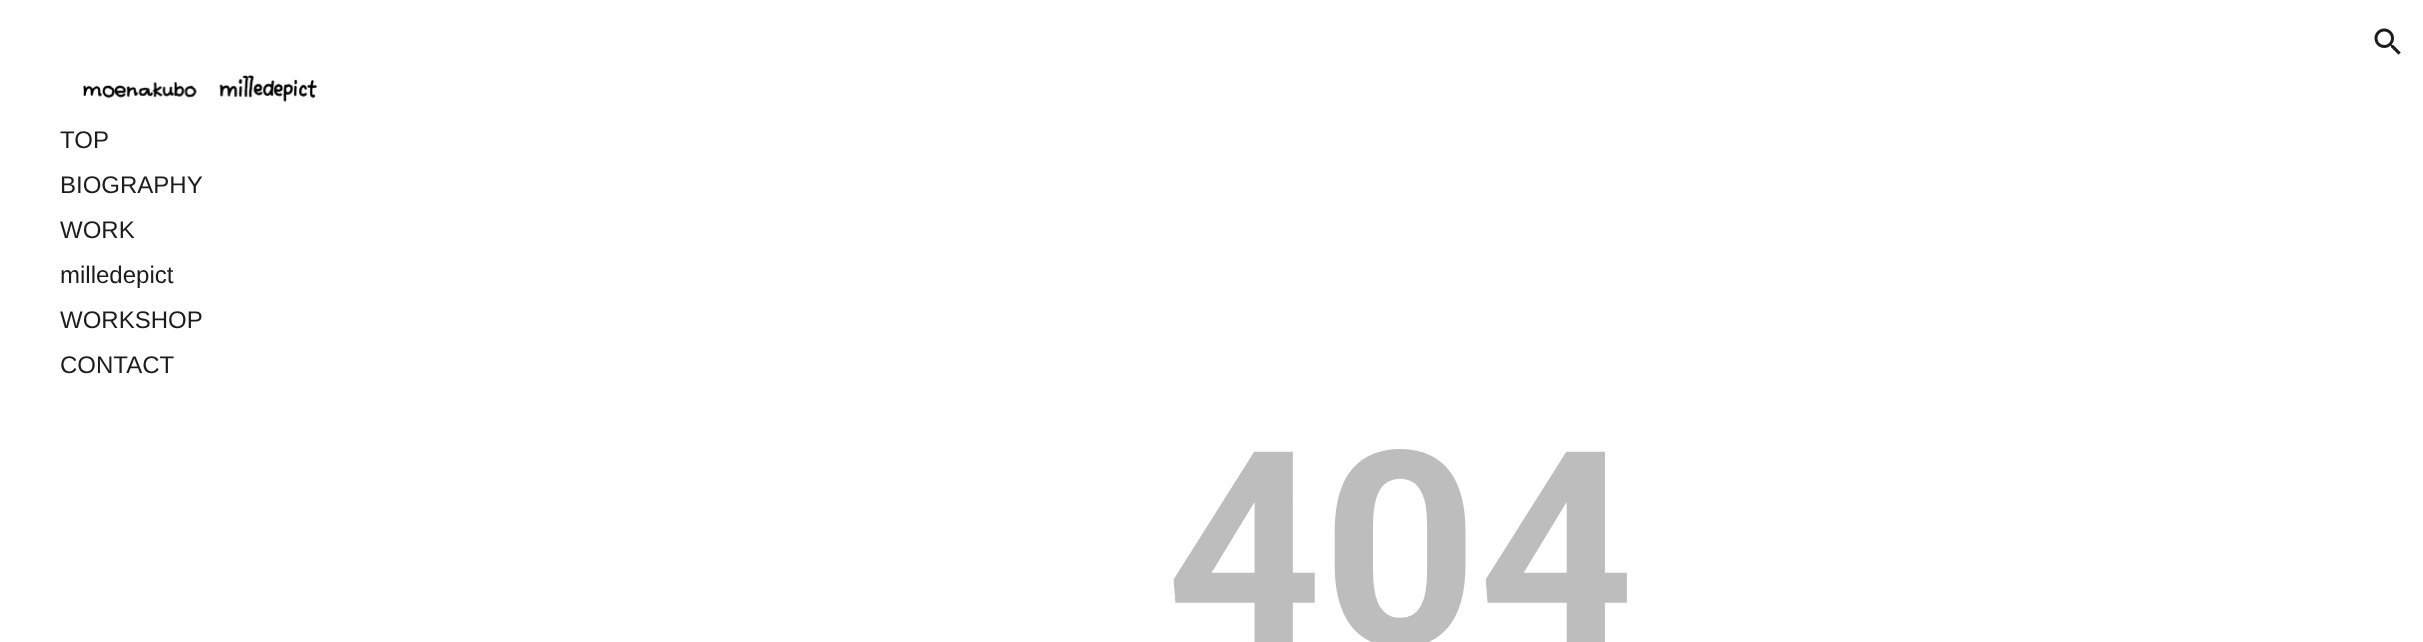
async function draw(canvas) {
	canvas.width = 2423;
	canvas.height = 642;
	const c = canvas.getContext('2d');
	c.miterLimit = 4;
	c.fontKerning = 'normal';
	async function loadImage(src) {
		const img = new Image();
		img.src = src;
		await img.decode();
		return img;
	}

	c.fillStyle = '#fff';
	c.fillRect(0, 0, 2423, 642);
	c.drawImage(await loadImage('img1.png'), 2374, 28, 27, 27);
	c.drawImage(await loadImage('img2.png'), 83, 75, 235, 27);
	c.font = '24px Liberation Sans';
	c.fillStyle = '#1c1c1c';
	for (const [text, x, y] of [
		['TOP', 60, 148],
		['BIOGRAPHY', 60, 193],
		['WORK', 60, 238],
		['milledepict', 60, 283],
		['WORKSHOP', 60, 328],
		['CONTACT', 60, 373],
	]) {
		c.fillText(text, x, y);
	}
	c.font = 'bold 272px Roboto';
	c.fillStyle = '#bdbdbd';
	c.fillText('404', 1166, 645);
}

draw(document.querySelector('canvas'));
